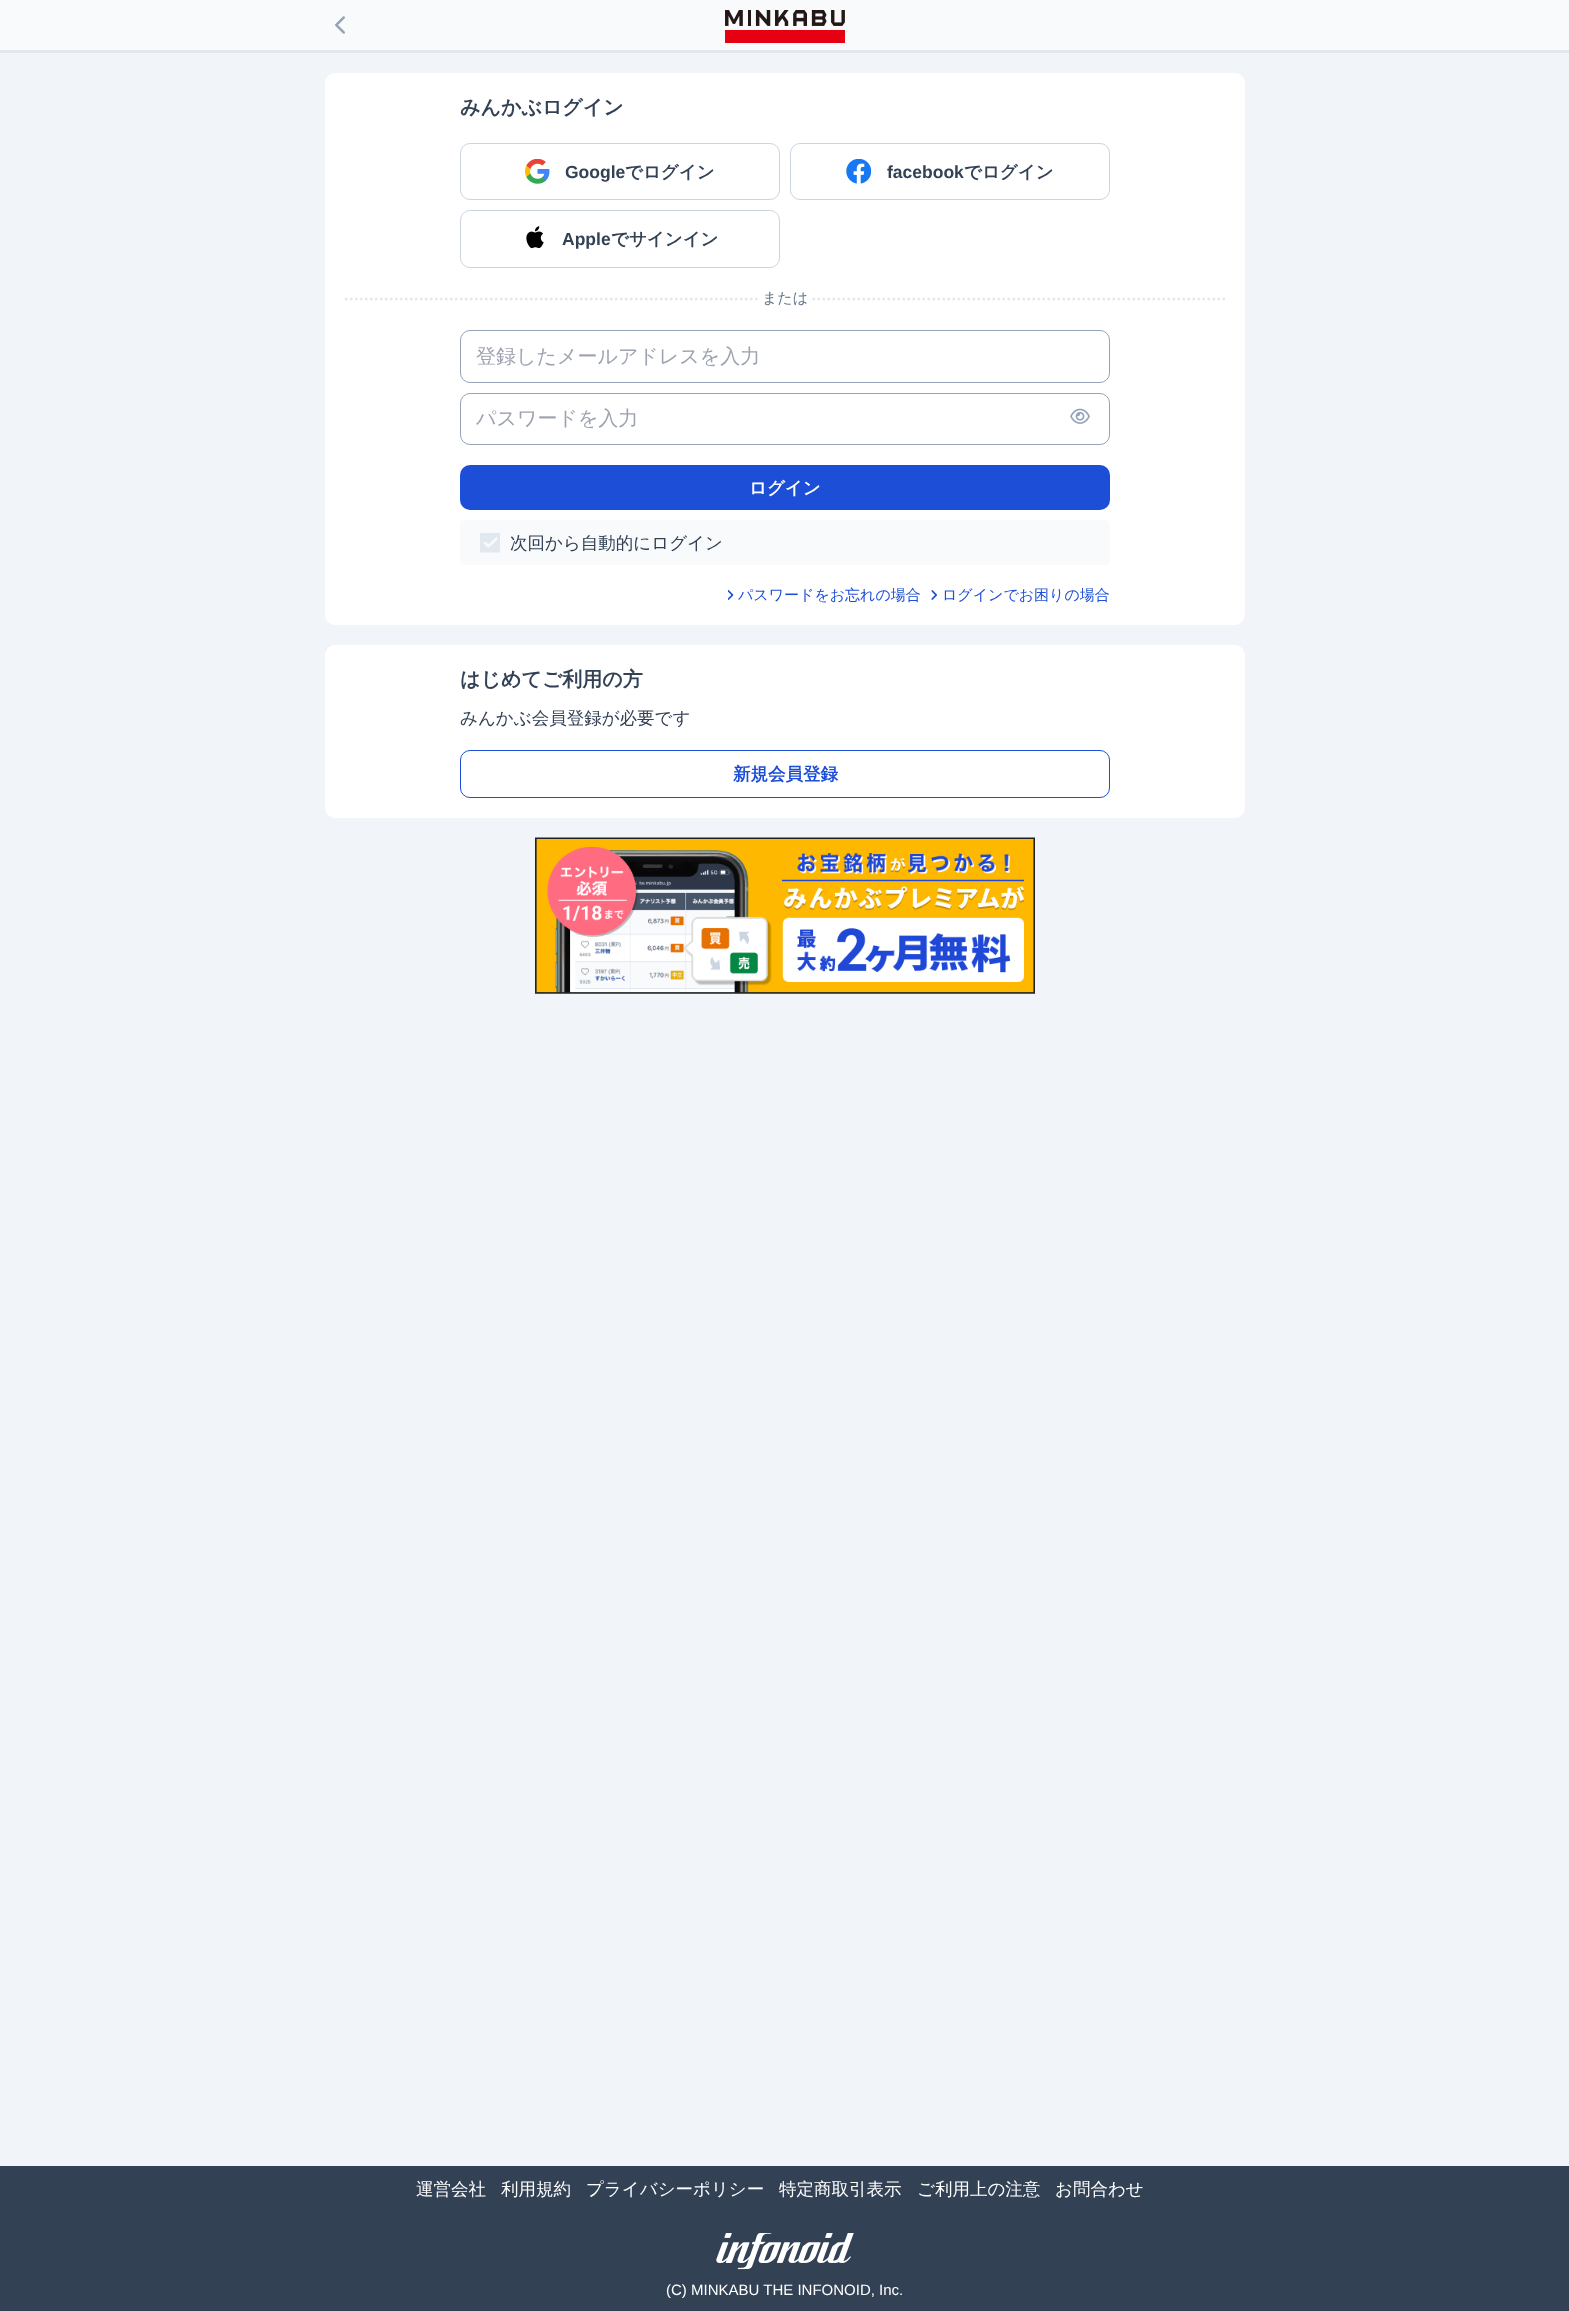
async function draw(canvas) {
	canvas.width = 1569;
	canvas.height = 2311;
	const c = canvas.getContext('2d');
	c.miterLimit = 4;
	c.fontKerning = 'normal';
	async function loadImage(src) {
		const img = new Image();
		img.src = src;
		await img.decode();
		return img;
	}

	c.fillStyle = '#f1f5f9';
	c.fillRect(0, 0, 1569, 2311);
	c.fillStyle = '#f8fafc';
	c.fillRect(0, 0, 1569, 50);
	c.fillStyle = '#e2e8f0';
	c.fillRect(0, 50, 1569, 3);
	c.drawImage(await loadImage('img1.png'), 335, 16, 10, 18);
	c.drawImage(await loadImage('img2.png'), 725, 10, 120, 33);
	c.fillStyle = '#fff';
	c.beginPath();
	c.roundRect(325, 73, 920, 552, 10);
	c.fill();
	c.font = 'bold 20px WenQuanYi Zen Hei';
	c.fillStyle = '#334155';
	c.fillText('みんかぶログイン', 460, 114);
	c.beginPath();
	c.roundRect(460.5, 143.5, 319, 56, 9.5);
	c.strokeStyle = '#cbd5e1';
	c.stroke();
	c.drawImage(await loadImage('img3.png'), 525, 159, 25, 25);
	c.font = 'bold 17.5px Liberation Sans';
	c.fillText('Google', 565, 178);
	c.font = 'bold 17.5px WenQuanYi Zen Hei';
	c.fillText('でログイン', 625, 178);
	c.beginPath();
	c.roundRect(790.5, 143.5, 319, 56, 9.5);
	c.stroke();
	c.drawImage(await loadImage('img4.png'), 846, 159, 25, 25);
	c.font = 'bold 17.5px Liberation Sans';
	c.fillText('facebook', 887, 178);
	c.font = 'bold 17.5px WenQuanYi Zen Hei';
	c.fillText('でログイン', 964, 178);
	c.beginPath();
	c.roundRect(460.5, 210.5, 319, 57, 9.5);
	c.stroke();
	c.drawImage(await loadImage('img5.png'), 526, 226, 18, 23);
	c.font = 'bold 17.5px Liberation Sans';
	c.fillText('Apple', 562, 245);
	c.font = 'bold 17.5px WenQuanYi Zen Hei';
	c.fillText('でサインイン', 611, 245);
	c.beginPath();
	c.moveTo(345, 299);
	c.lineTo(757.5, 299);
	c.strokeStyle = '#e2e8f0';
	c.lineWidth = 2.5;
	c.setLineDash([2.5, 2.5]);
	c.stroke();
	c.font = '500 15px WenQuanYi Zen Hei';
	c.fillStyle = '#64748b';
	c.fillText('または', 762, 303);
	c.beginPath();
	c.moveTo(812.5, 299);
	c.lineTo(1225, 299);
	c.stroke();
	c.beginPath();
	c.roundRect(460.5, 330.5, 649, 52, 9.5);
	c.strokeStyle = '#94a3b8';
	c.lineWidth = 1;
	c.setLineDash([]);
	c.stroke();
	c.font = '500 20px WenQuanYi Zen Hei';
	c.fillStyle = '#9ca3af';
	c.fillText('登録したメールアドレスを入力', 476, 363);
	c.beginPath();
	c.roundRect(460.5, 393.5, 649, 51, 9.5);
	c.stroke();
	c.fillText('パスワードを入力', 476, 425);
	c.drawImage(await loadImage('img6.png'), 1070, 408, 20, 16);
	c.fillStyle = '#1d4ed8';
	c.beginPath();
	c.roundRect(460, 465, 650, 45, 10);
	c.fill();
	c.font = 'bold 17.5px WenQuanYi Zen Hei';
	c.fillStyle = '#fff';
	c.fillText('ログイン', 749, 494);
	c.fillStyle = '#f8fafc';
	c.beginPath();
	c.roundRect(460, 520, 650, 45, 5);
	c.fill();
	c.drawImage(await loadImage('img7.png'), 480, 533, 20, 20);
	c.font = '500 17.5px WenQuanYi Zen Hei';
	c.fillStyle = '#334155';
	c.fillText('次回から自動的にログイン', 510, 549);
	c.drawImage(await loadImage('img8.png'), 728, 590, 6, 10);
	c.font = '500 15px WenQuanYi Zen Hei';
	c.fillStyle = '#1d4ed8';
	c.fillText('パスワードをお忘れの場合', 738, 600);
	c.drawImage(await loadImage('img9.png'), 931, 590, 6, 10);
	c.fillText('ログインでお困りの場合', 942, 600);
	c.fillStyle = '#fff';
	c.beginPath();
	c.roundRect(325, 645, 920, 173, 10);
	c.fill();
	c.font = 'bold 20px WenQuanYi Zen Hei';
	c.fillStyle = '#334155';
	c.fillText('はじめてご利用の方', 460, 686);
	c.font = '500 17.5px WenQuanYi Zen Hei';
	c.fillText('みんかぶ会員登録が必要です', 460, 724);
	c.beginPath();
	c.roundRect(460.5, 750.5, 649, 47, 9.5);
	c.strokeStyle = '#1d4ed8';
	c.stroke();
	c.font = 'bold 17.5px WenQuanYi Zen Hei';
	c.fillStyle = '#1d4ed8';
	c.fillText('新規会員登録', 733, 780);
	c.drawImage(await loadImage('img10.png'), 535, 837, 500, 157);
	c.fillStyle = '#334155';
	c.fillRect(0, 2166, 1569, 145);
	c.font = '500 17.5px WenQuanYi Zen Hei';
	c.fillStyle = '#fff';
	for (const [text, x, y] of [
		['運営会社', 416, 2195],
		['利用規約', 501, 2195],
		['プライバシーポリシー', 586, 2195],
		['特定商取引表示', 779, 2195],
		['ご利用上の注意', 917, 2195],
		['お問合わせ', 1055, 2195],
	]) {
		c.fillText(text, x, y);
	}
	c.drawImage(await loadImage('img11.png'), 716, 2233, 138, 37);
	c.font = '15px Liberation Sans';
	c.fillText('(C) MINKABU THE INFONOID, Inc.', 666, 2295);
}

draw(document.querySelector('canvas'));
